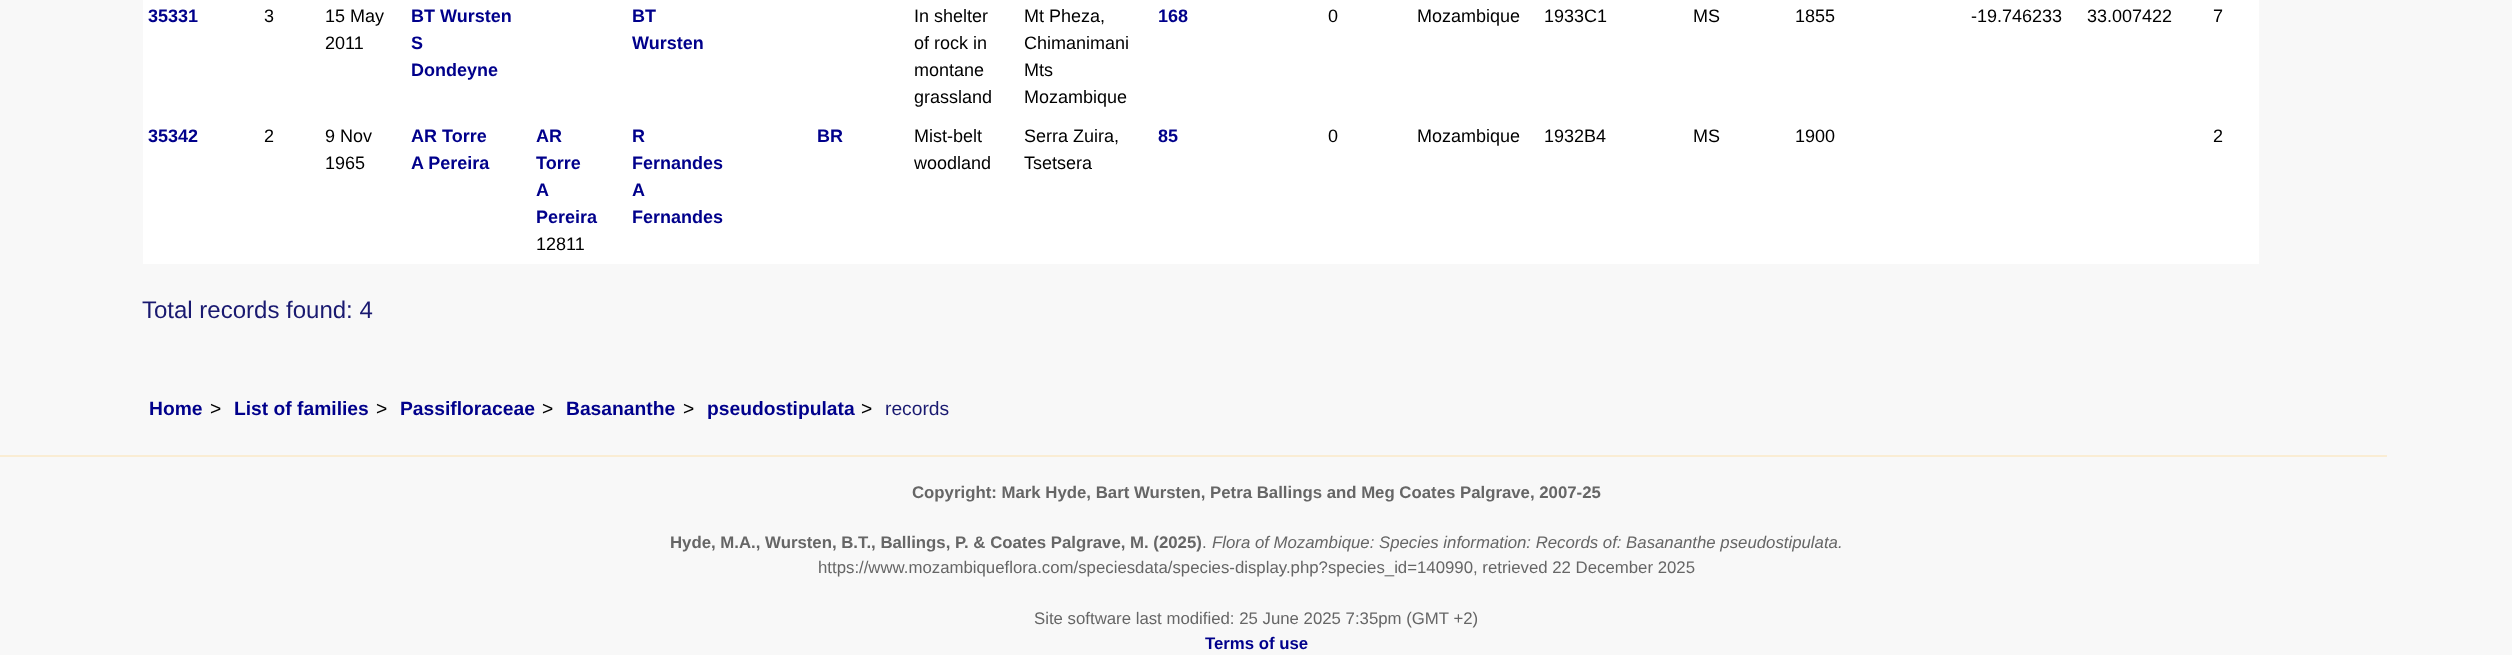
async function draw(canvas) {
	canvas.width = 2512;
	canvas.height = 655;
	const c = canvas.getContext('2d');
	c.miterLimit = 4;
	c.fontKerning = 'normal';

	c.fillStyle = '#f8f8f8';
	c.fillRect(0, 0, 2512, 655);
	c.fillStyle = '#fff';
	c.fillRect(143, 0, 2116, 264);
	c.font = 'bold 18px Liberation Sans';
	c.fillStyle = '#00008b';
	c.fillText('35331', 148, 22);
	c.font = '18px Liberation Sans';
	c.fillStyle = '#000';
	for (const [text, x, y] of [
		['3', 264, 22],
		['15 May', 325, 22],
		['2011', 325, 49],
	]) {
		c.fillText(text, x, y);
	}
	c.font = 'bold 18px Liberation Sans';
	c.fillStyle = '#00008b';
	for (const [text, x, y] of [
		['BT Wursten', 411, 22],
		['S', 411, 49],
		['Dondeyne', 411, 76],
		['BT', 632, 22],
		['Wursten', 632, 49],
	]) {
		c.fillText(text, x, y);
	}
	c.font = '18px Liberation Sans';
	c.fillStyle = '#000';
	for (const [text, x, y] of [
		['In shelter', 914, 22],
		['of rock in', 914, 49],
		['montane', 914, 76],
		['grassland', 914, 103],
		['Mt Pheza,', 1024, 22],
		['Chimanimani', 1024, 49],
		['Mts', 1024, 76],
		['Mozambique', 1024, 103],
	]) {
		c.fillText(text, x, y);
	}
	c.font = 'bold 18px Liberation Sans';
	c.fillStyle = '#00008b';
	c.fillText('168', 1158, 22);
	c.font = '18px Liberation Sans';
	c.fillStyle = '#000';
	for (const [text, x, y] of [
		['0', 1328, 22],
		['Mozambique', 1417, 22],
		['1933C1', 1544, 22],
		['MS', 1693, 22],
		['1855', 1795, 22],
		['-19.746233', 1971, 22],
		['33.007422', 2087, 22],
		['7', 2213, 22],
	]) {
		c.fillText(text, x, y);
	}
	c.font = 'bold 18px Liberation Sans';
	c.fillStyle = '#00008b';
	c.fillText('35342', 148, 142);
	c.font = '18px Liberation Sans';
	c.fillStyle = '#000';
	for (const [text, x, y] of [
		['2', 264, 142],
		['9 Nov', 325, 142],
		['1965', 325, 169],
	]) {
		c.fillText(text, x, y);
	}
	c.font = 'bold 18px Liberation Sans';
	c.fillStyle = '#00008b';
	for (const [text, x, y] of [
		['AR Torre', 411, 142],
		['A Pereira', 411, 169],
		['AR', 536, 142],
		['Torre', 536, 169],
		['A', 536, 196],
		['Pereira', 536, 223],
	]) {
		c.fillText(text, x, y);
	}
	c.font = '18px Liberation Sans';
	c.fillStyle = '#000';
	c.fillText('12811', 536, 250);
	c.font = 'bold 18px Liberation Sans';
	c.fillStyle = '#00008b';
	for (const [text, x, y] of [
		['R', 632, 142],
		['Fernandes', 632, 169],
		['A', 632, 196],
		['Fernandes', 632, 223],
		['BR', 817, 142],
	]) {
		c.fillText(text, x, y);
	}
	c.font = '18px Liberation Sans';
	c.fillStyle = '#000';
	for (const [text, x, y] of [
		['Mist-belt', 914, 142],
		['woodland', 914, 169],
		['Serra Zuira,', 1024, 142],
		['Tsetsera', 1024, 169],
	]) {
		c.fillText(text, x, y);
	}
	c.font = 'bold 18px Liberation Sans';
	c.fillStyle = '#00008b';
	c.fillText('85', 1158, 142);
	c.font = '18px Liberation Sans';
	c.fillStyle = '#000';
	for (const [text, x, y] of [
		['0', 1328, 142],
		['Mozambique', 1417, 142],
		['1932B4', 1544, 142],
		['MS', 1693, 142],
		['1900', 1795, 142],
		['2', 2213, 142],
	]) {
		c.fillText(text, x, y);
	}
	c.font = '24px Liberation Sans';
	c.fillStyle = '#191970';
	c.fillText('Total records found: 4', 142, 318);
	c.font = 'bold 19.25px Liberation Sans';
	c.fillStyle = '#00008b';
	c.fillText('Home', 149, 415);
	c.font = '19.25px Liberation Sans';
	c.fillStyle = '#000';
	c.fillText('>', 210, 415);
	c.font = 'bold 19.25px Liberation Sans';
	c.fillStyle = '#00008b';
	c.fillText('List of families', 234, 415);
	c.font = '19.25px Liberation Sans';
	c.fillStyle = '#000';
	c.fillText('>', 376, 415);
	c.font = 'bold 19.25px Liberation Sans';
	c.fillStyle = '#00008b';
	c.fillText('Passifloraceae', 400, 415);
	c.font = '19.25px Liberation Sans';
	c.fillStyle = '#000';
	c.fillText('>', 542, 415);
	c.font = 'bold 19.25px Liberation Sans';
	c.fillStyle = '#00008b';
	c.fillText('Basananthe', 566, 415);
	c.font = '19.25px Liberation Sans';
	c.fillStyle = '#000';
	c.fillText('>', 683, 415);
	c.font = 'bold 19.25px Liberation Sans';
	c.fillStyle = '#00008b';
	c.fillText('pseudostipulata', 707, 415);
	c.font = '19.25px Liberation Sans';
	c.fillStyle = '#000';
	c.fillText('>', 861, 415);
	c.fillStyle = '#191970';
	c.fillText('records', 885, 415);
	c.fillStyle = '#faedd4';
	c.fillRect(0, 455, 2387, 2);
	c.font = 'bold 16.8px Liberation Sans';
	c.fillStyle = '#666';
	c.fillText('Copyright: Mark Hyde, Bart Wursten, Petra Ballings and Meg Coates Palgrave, 2007-25', 912, 498);
	c.fillText('Hyde, M.A., Wursten, B.T., Ballings, P. & Coates Palgrave, M. (2025)', 670, 548);
	c.font = '16.8px Liberation Sans';
	c.fillText('.', 1202, 548);
	c.font = 'italic 16.8px Liberation Sans';
	c.fillText('Flora of Mozambique: Species information: Records of: Basananthe pseudostipulata.', 1212, 548);
	c.font = '16.8px Liberation Sans';
	c.fillText('https://www.mozambiqueflora.com/speciesdata/species-display.php?species_id=140990, retrieved 22 December 2025', 818, 573);
	c.fillText('Site software last modified: 25 June 2025 7:35pm (GMT +2)', 1034, 624);
	c.font = 'bold 16.8px Liberation Sans';
	c.fillStyle = '#00008b';
	c.fillText('Terms of use', 1205, 649);
}

draw(document.querySelector('canvas'));
